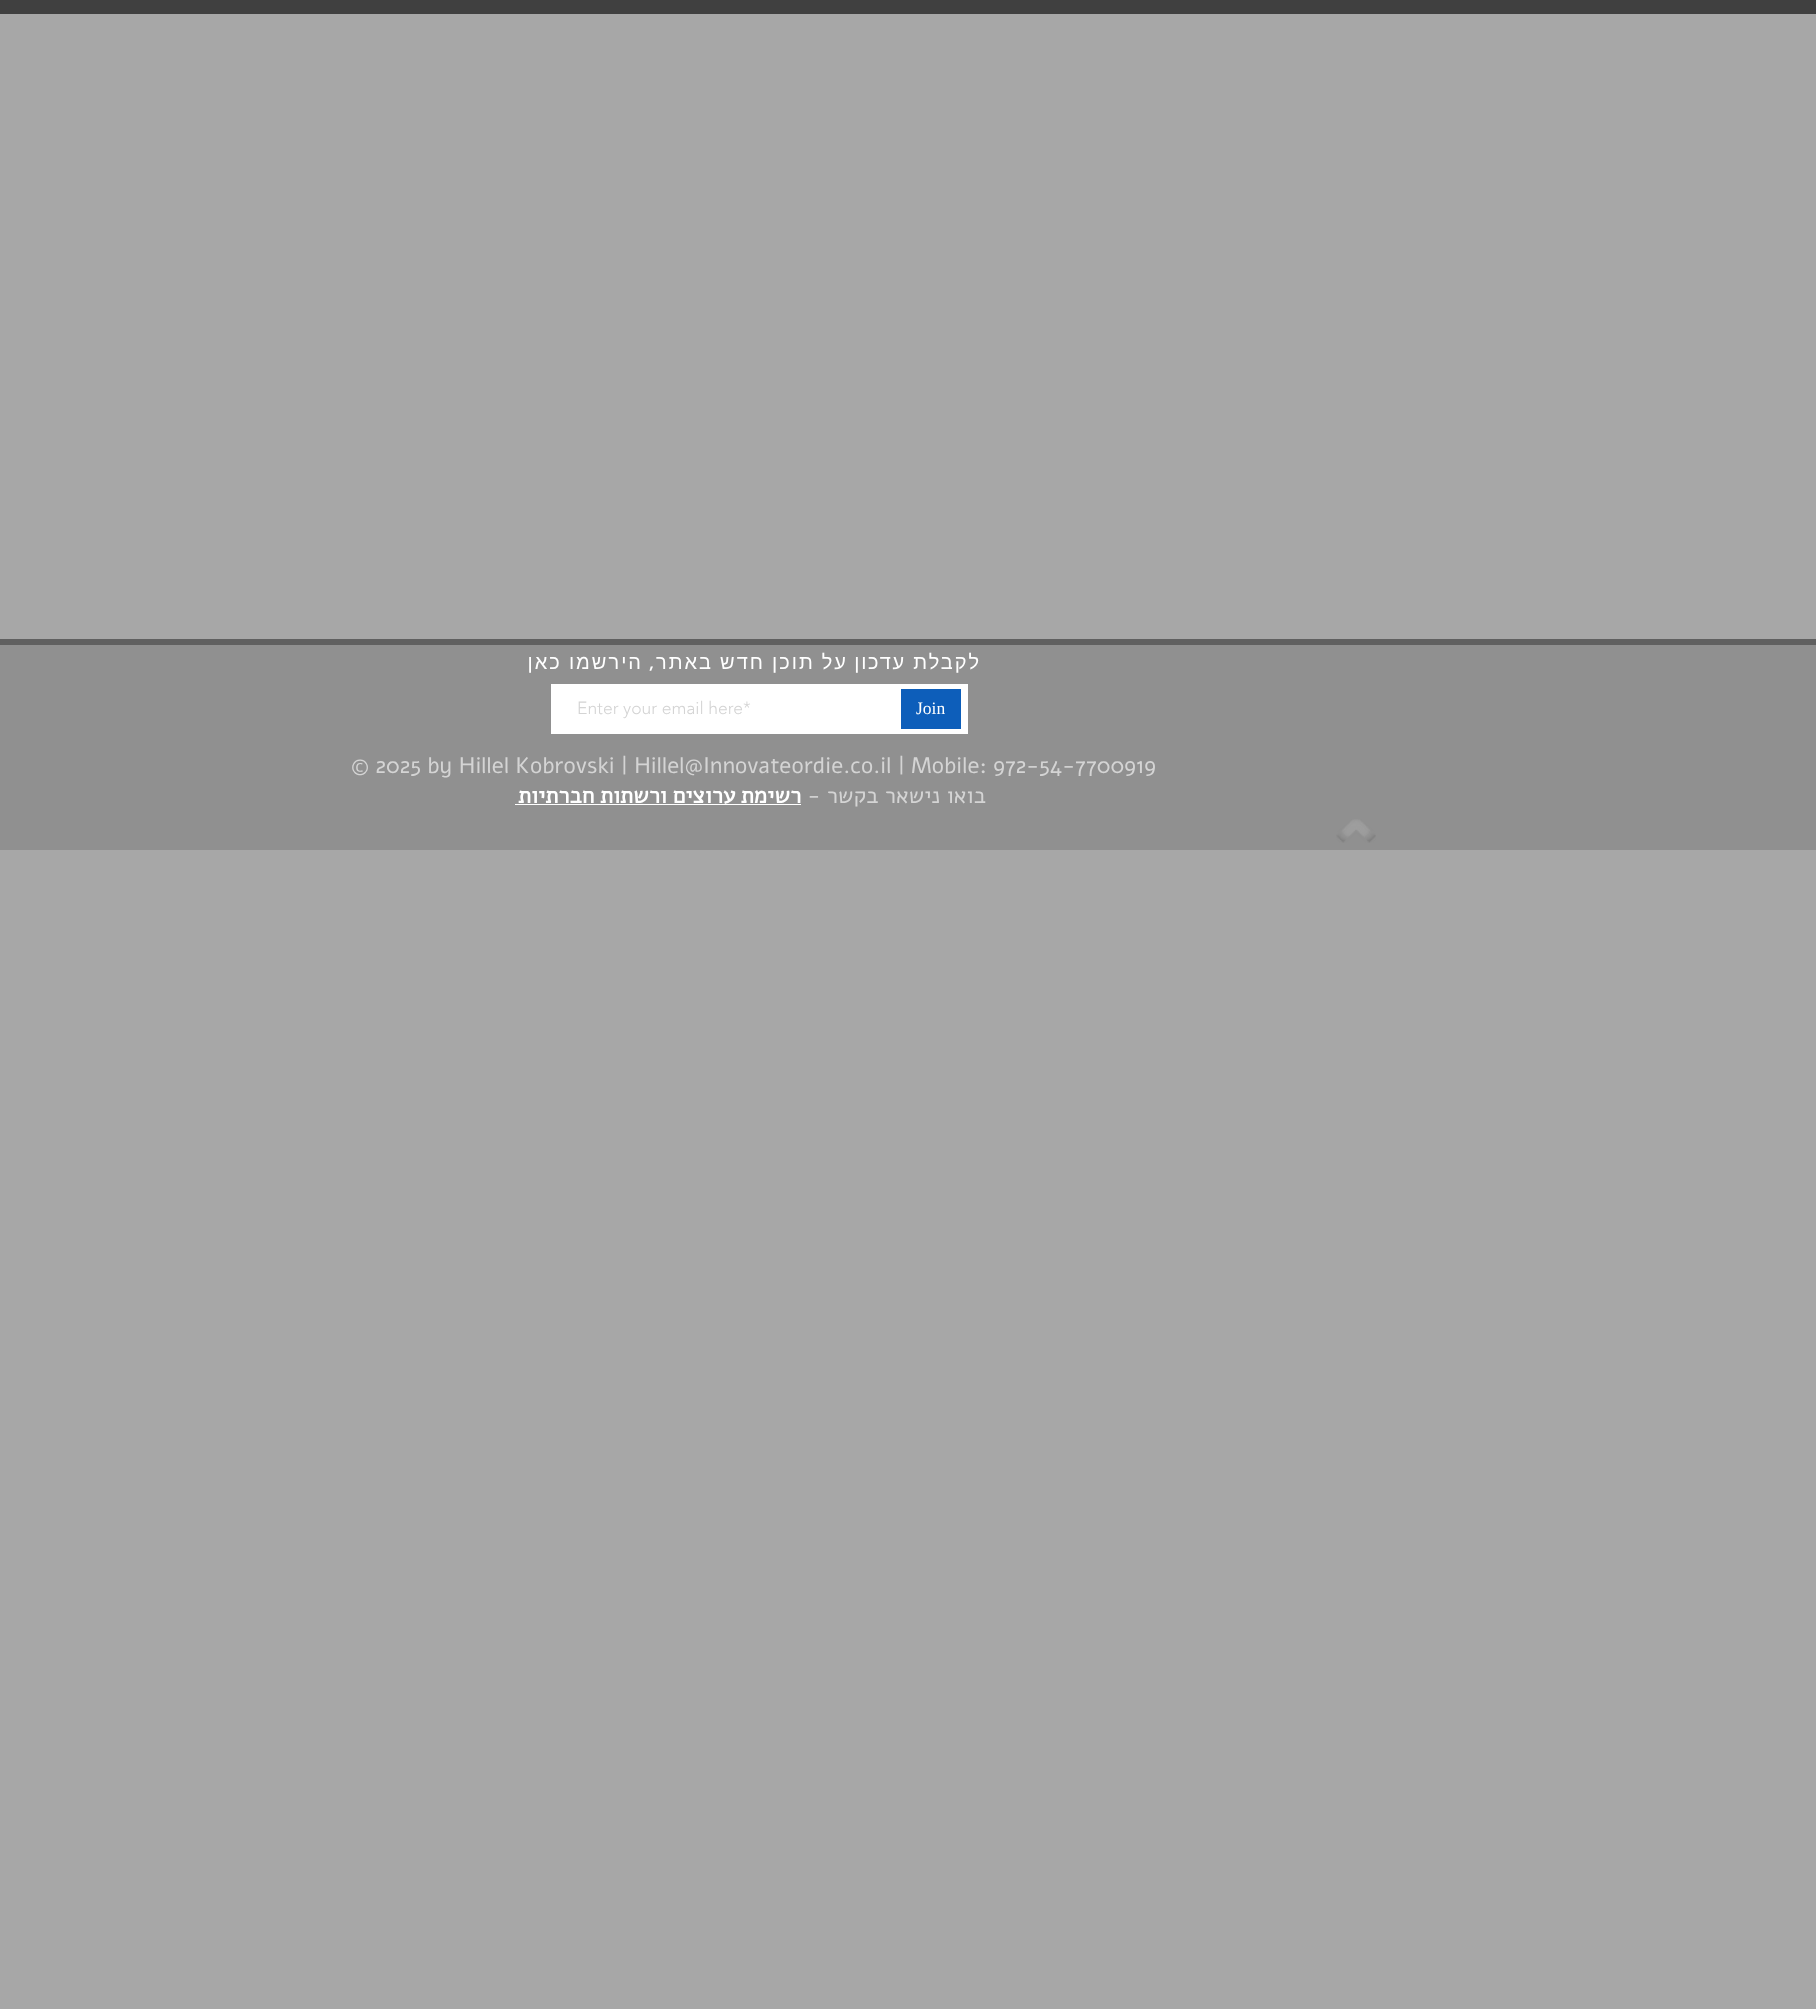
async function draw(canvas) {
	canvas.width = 1816;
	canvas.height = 2009;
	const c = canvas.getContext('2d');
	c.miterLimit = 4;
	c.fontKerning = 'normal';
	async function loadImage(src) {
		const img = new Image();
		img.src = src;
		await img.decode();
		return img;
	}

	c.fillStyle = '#a7a7a7';
	c.fillRect(0, 0, 1816, 2009);
	for (const [x, y, w, h, color] of [
		[0, 0, 1816, 14, '#404040'],
		[0, 645, 1816, 205, '#909090'],
		[0, 639, 1816, 6, '#606060'],
	]) {
		c.fillStyle = color;
		c.fillRect(x, y, w, h);
	}
	c.letterSpacing = '2px';
	c.wordSpacing = '-0.5px';
	c.direction = 'rtl';
	c.font = '20px Liberation Sans';
	c.fillStyle = '#fff';
	c.fillText('הירשמו כאן', 643, 669);
	c.wordSpacing = '0px';
	c.font = '20px "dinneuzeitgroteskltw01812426"';
	c.fillText(',', 656, 669);
	c.wordSpacing = '-0.5px';
	c.font = '20px Liberation Sans';
	c.fillText('על תוכן חדש באתר', 848, 669);
	c.letterSpacing = '1.75px';
	c.wordSpacing = '0px';
	c.fillText('עדכון', 906, 669);
	c.letterSpacing = '2px';
	c.fillText('לקבלת', 981, 669);
	c.fillRect(551, 684, 417, 50);
	c.letterSpacing = '0px';
	c.direction = 'ltr';
	c.font = '300 17.5px "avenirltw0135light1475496"';
	c.fillStyle = '#d4d4d4';
	c.fillText('Enter your email here*', 577, 714);
	c.fillStyle = '#0d5eba';
	c.fillRect(901, 689, 60, 40);
	c.font = '17.5px Liberation Serif';
	c.fillStyle = '#fff';
	c.fillText('Join', 916, 714);
	c.font = '22.5px Alef';
	c.fillStyle = '#d4d4d4';
	c.fillText('© 2025 by Hillel Kobrovski | Hillel@Innovateordie.co.il | Mobile: 972-54-7700919', 351, 773);
	c.direction = 'rtl';
	c.font = 'bold 22.5px Alef';
	c.fillStyle = '#fff';
	c.fillText('רשימת ערוצים ורשתות חברתיות', 801, 803);
	c.fillRect(515, 804, 286, 1);
	c.font = '22.5px Alef';
	c.fillStyle = '#d4d4d4';
	c.fillText('בואו נישאר בקשר -', 986, 803);
	c.drawImage(await loadImage('img1.png'), 1336, 819, 40, 24);
}

draw(document.querySelector('canvas'));
